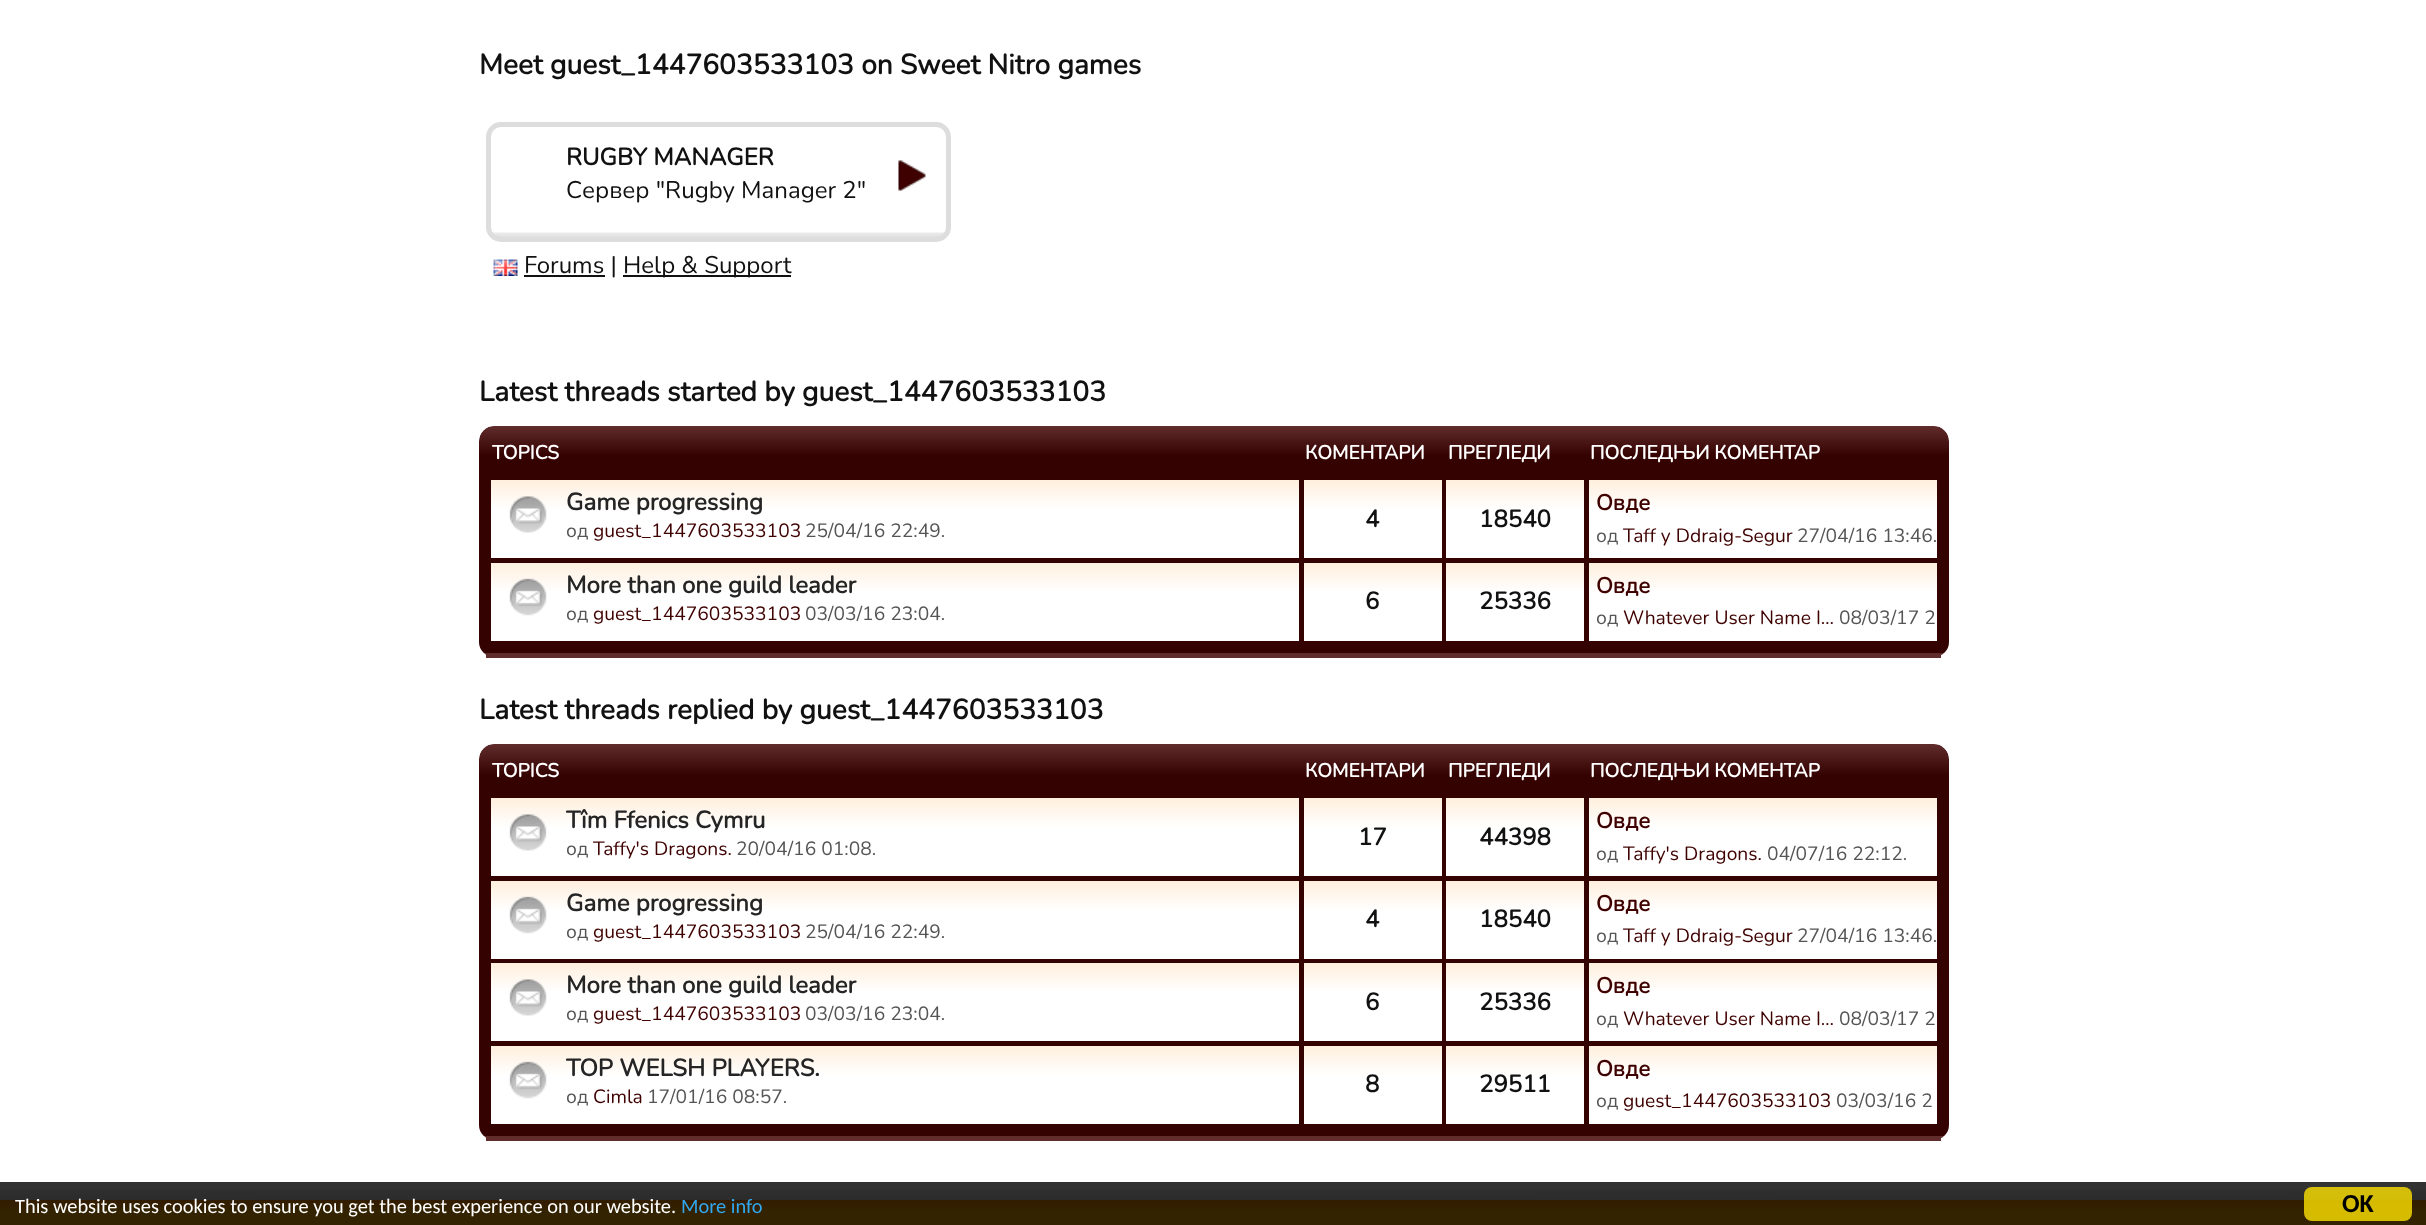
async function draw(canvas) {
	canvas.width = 2426;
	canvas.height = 1225;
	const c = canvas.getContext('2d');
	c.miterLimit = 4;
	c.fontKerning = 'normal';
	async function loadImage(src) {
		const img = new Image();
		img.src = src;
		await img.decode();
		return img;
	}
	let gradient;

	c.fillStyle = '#fff';
	c.fillRect(0, 0, 2426, 1225);
	c.fillStyle = '#333';
	c.fillRect(0, 1182, 2426, 8);
	c.drawImage(await loadImage('img1.png'), 0, 1189, 2426, 11);
	c.font = 'bold 28.1px Nunito';
	c.fillStyle = '#111';
	c.fillText('Meet guest_1447603533103 on Sweet Nitro games', 479, 74);
	c.drawImage(await loadImage('img2.png'), 487, 232, 463, 5);
	c.beginPath();
	c.roundRect(488.5, 124.5, 460, 115, 12.5);
	c.strokeStyle = '#ddd';
	c.lineWidth = 5;
	c.stroke();
	c.font = 'bold 24px Nunito';
	c.fillText('RUGBY MANAGER', 566, 165);
	c.font = '200 24px Nunito';
	c.fillText('Сервер "Rugby Manager 2"', 566, 198);
	c.drawImage(await loadImage('img3.png'), 898, 160, 28, 31);
	c.drawImage(await loadImage('img4.png'), 493, 259, 25, 17);
	c.fillRect(524, 275, 81, 2);
	c.fillText('Forums |', 524, 273);
	c.fillRect(623, 275, 168, 2);
	c.fillText('Help & Support', 623, 273);
	c.font = 'bold 28.1px Nunito';
	c.fillText('Latest threads started by guest_1447603533103', 479, 401);
	c.save();
	c.beginPath();
	c.roundRect(479, 426, 1470, 231, 15);
	c.clip();
	gradient = c.createLinearGradient(1214, 426, 1214, 653);
	gradient.addColorStop(0, '#602c2c');
	gradient.addColorStop(0.13, '#350202');
	c.fillStyle = gradient;
	c.beginPath();
	c.roundRect(479, 426, 1470, 227, [15, 15, 0, 0]);
	c.fill();
	gradient = c.createLinearGradient(1214, 652, 1214, 879);
	gradient.addColorStop(0, '#602c2c');
	gradient.addColorStop(0.13, '#350202');
	c.fillStyle = gradient;
	c.fillRect(479, 653, 1470, 3);
	c.restore();
	c.fillStyle = '#602c2c';
	c.fillRect(486, 654, 1455, 4);
	c.font = 'bold 19.25px Nunito';
	c.fillStyle = '#fff';
	for (const [text, x, y] of [
		['TOPICS', 492, 459],
		['КОМЕНТАРИ', 1305, 459],
		['ПРЕГЛЕДИ', 1448, 459],
		['ПОСЛЕДЊИ КОМЕНТАР', 1590, 459],
	]) {
		c.fillText(text, x, y);
	}
	gradient = c.createLinearGradient(895, 480, 895, 558);
	gradient.addColorStop(0, '#ffefdd');
	gradient.addColorStop(0.38, '#fff');
	c.fillStyle = gradient;
	c.fillRect(491, 480, 808, 78);
	c.drawImage(await loadImage('img5.png'), 509, 496, 38, 37);
	c.font = 'bold 24px Nunito';
	c.fillStyle = '#252525';
	c.fillText('Game progressing', 566, 510);
	c.font = '200 19.25px Nunito';
	c.fillStyle = '#555';
	c.fillText('25/04/16 22:49.', 805, 537);
	c.fillText('од', 566, 537);
	c.fillStyle = '#3f0000';
	c.fillText('guest_1447603533103', 593, 537);
	gradient = c.createLinearGradient(1373, 480, 1373, 558);
	gradient.addColorStop(0, '#ffefdd');
	gradient.addColorStop(0.38, '#fff');
	c.fillStyle = gradient;
	c.fillRect(1304, 480, 138, 78);
	c.font = 'bold 24px Nunito';
	c.fillStyle = '#111';
	c.fillText('4', 1365, 527);
	gradient = c.createLinearGradient(1515, 480, 1515, 558);
	gradient.addColorStop(0, '#ffefdd');
	gradient.addColorStop(0.38, '#fff');
	c.fillStyle = gradient;
	c.fillRect(1446, 480, 138, 78);
	c.fillStyle = '#111';
	c.fillText('18540', 1479, 527);
	gradient = c.createLinearGradient(1763, 480, 1763, 558);
	gradient.addColorStop(0, '#ffefdd');
	gradient.addColorStop(0.38, '#fff');
	c.fillStyle = gradient;
	c.fillRect(1589, 480, 348, 78);
	c.font = 'bold 22px Nunito';
	c.fillStyle = '#3f0000';
	c.fillText('Овде', 1596, 510);
	c.font = '200 19.25px Nunito';
	c.fillStyle = '#555';
	c.fillText('од', 1596, 542);
	c.fillStyle = '#3f0000';
	c.fillText('Taff y Ddraig-Segur', 1623, 542);
	c.fillStyle = '#555';
	c.fillText('27/04/16 13:46.', 1797, 542);
	gradient = c.createLinearGradient(895, 562, 895, 641);
	gradient.addColorStop(0, '#ffefdd');
	gradient.addColorStop(0.38, '#fff');
	c.fillStyle = gradient;
	c.fillRect(491, 563, 808, 78);
	c.drawImage(await loadImage('img6.png'), 509, 578, 38, 38);
	c.font = 'bold 24px Nunito';
	c.fillStyle = '#252525';
	c.fillText('More than one guild leader', 566, 593);
	c.font = '200 19.25px Nunito';
	c.fillStyle = '#555';
	c.fillText('03/03/16 23:04.', 805, 620);
	c.fillText('од', 566, 620);
	c.fillStyle = '#3f0000';
	c.fillText('guest_1447603533103', 593, 620);
	gradient = c.createLinearGradient(1373, 563, 1373, 641);
	gradient.addColorStop(0, '#ffefdd');
	gradient.addColorStop(0.38, '#fff');
	c.fillStyle = gradient;
	c.fillRect(1304, 563, 138, 78);
	c.font = 'bold 24px Nunito';
	c.fillStyle = '#111';
	c.fillText('6', 1365, 609);
	gradient = c.createLinearGradient(1515, 563, 1515, 641);
	gradient.addColorStop(0, '#ffefdd');
	gradient.addColorStop(0.38, '#fff');
	c.fillStyle = gradient;
	c.fillRect(1446, 563, 138, 78);
	c.fillStyle = '#111';
	c.fillText('25336', 1479, 609);
	gradient = c.createLinearGradient(1763, 563, 1763, 641);
	gradient.addColorStop(0, '#ffefdd');
	gradient.addColorStop(0.38, '#fff');
	c.fillStyle = gradient;
	c.fillRect(1589, 563, 348, 78);
	c.font = 'bold 22px Nunito';
	c.fillStyle = '#3f0000';
	c.fillText('Овде', 1596, 593);
	c.font = '200 19.25px Nunito';
	c.fillStyle = '#555';
	c.fillText('од', 1596, 624);
	c.fillStyle = '#3f0000';
	c.fillText('Whatever User Name I…', 1623, 624);
	c.fillStyle = '#555';
	c.fillText('08/03/17 2', 1839, 624);
	c.font = 'bold 28.1px Nunito';
	c.fillStyle = '#111';
	c.fillText('Latest threads replied by guest_1447603533103', 479, 719);
	c.save();
	c.beginPath();
	c.roundRect(479, 744, 1470, 396, 15);
	c.clip();
	gradient = c.createLinearGradient(1214, 744, 1214, 1136);
	gradient.addColorStop(0, '#602c2c');
	gradient.addColorStop(0.08, '#350202');
	c.fillStyle = gradient;
	c.beginPath();
	c.roundRect(479, 744, 1470, 392, [15, 15, 0, 0]);
	c.fill();
	gradient = c.createLinearGradient(1214, 1136, 1214, 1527);
	gradient.addColorStop(0, '#602c2c');
	gradient.addColorStop(0.08, '#350202');
	c.fillStyle = gradient;
	c.fillRect(479, 1136, 1470, 3);
	c.restore();
	c.fillStyle = '#602c2c';
	c.fillRect(486, 1137, 1455, 4);
	c.font = 'bold 19.25px Nunito';
	c.fillStyle = '#fff';
	for (const [text, x, y] of [
		['TOPICS', 492, 777],
		['КОМЕНТАРИ', 1305, 777],
		['ПРЕГЛЕДИ', 1448, 777],
		['ПОСЛЕДЊИ КОМЕНТАР', 1590, 777],
	]) {
		c.fillText(text, x, y);
	}
	gradient = c.createLinearGradient(895, 798, 895, 876);
	gradient.addColorStop(0, '#ffefdd');
	gradient.addColorStop(0.38, '#fff');
	c.fillStyle = gradient;
	c.fillRect(491, 798, 808, 78);
	c.drawImage(await loadImage('img5.png'), 509, 814, 38, 37);
	c.font = 'bold 24px Nunito';
	c.fillStyle = '#252525';
	c.fillText('Tîm Ffenics Cymru', 566, 828);
	c.font = '200 19.25px Nunito';
	c.fillStyle = '#555';
	c.fillText('20/04/16 01:08.', 736, 855);
	c.fillText('од', 566, 855);
	c.fillStyle = '#3f0000';
	c.fillText('Taffy\'s Dragons.', 593, 855);
	gradient = c.createLinearGradient(1373, 798, 1373, 876);
	gradient.addColorStop(0, '#ffefdd');
	gradient.addColorStop(0.38, '#fff');
	c.fillStyle = gradient;
	c.fillRect(1304, 798, 138, 78);
	c.font = 'bold 24px Nunito';
	c.fillStyle = '#111';
	c.fillText('17', 1358, 845);
	gradient = c.createLinearGradient(1515, 798, 1515, 876);
	gradient.addColorStop(0, '#ffefdd');
	gradient.addColorStop(0.38, '#fff');
	c.fillStyle = gradient;
	c.fillRect(1446, 798, 138, 78);
	c.fillStyle = '#111';
	c.fillText('44398', 1479, 845);
	gradient = c.createLinearGradient(1763, 798, 1763, 876);
	gradient.addColorStop(0, '#ffefdd');
	gradient.addColorStop(0.38, '#fff');
	c.fillStyle = gradient;
	c.fillRect(1589, 798, 348, 78);
	c.font = 'bold 22px Nunito';
	c.fillStyle = '#3f0000';
	c.fillText('Овде', 1596, 828);
	c.font = '200 19.25px Nunito';
	c.fillStyle = '#555';
	c.fillText('од', 1596, 860);
	c.fillStyle = '#3f0000';
	c.fillText('Taffy\'s Dragons.', 1623, 860);
	c.fillStyle = '#555';
	c.fillText('04/07/16 22:12.', 1767, 860);
	gradient = c.createLinearGradient(895, 881, 895, 959);
	gradient.addColorStop(0, '#ffefdd');
	gradient.addColorStop(0.38, '#fff');
	c.fillStyle = gradient;
	c.fillRect(491, 881, 808, 78);
	c.drawImage(await loadImage('img7.png'), 509, 896, 38, 38);
	c.font = 'bold 24px Nunito';
	c.fillStyle = '#252525';
	c.fillText('Game progressing', 566, 911);
	c.font = '200 19.25px Nunito';
	c.fillStyle = '#555';
	c.fillText('25/04/16 22:49.', 805, 938);
	c.fillText('од', 566, 938);
	c.fillStyle = '#3f0000';
	c.fillText('guest_1447603533103', 593, 938);
	gradient = c.createLinearGradient(1373, 881, 1373, 959);
	gradient.addColorStop(0, '#ffefdd');
	gradient.addColorStop(0.38, '#fff');
	c.fillStyle = gradient;
	c.fillRect(1304, 881, 138, 78);
	c.font = 'bold 24px Nunito';
	c.fillStyle = '#111';
	c.fillText('4', 1365, 927);
	gradient = c.createLinearGradient(1515, 881, 1515, 959);
	gradient.addColorStop(0, '#ffefdd');
	gradient.addColorStop(0.38, '#fff');
	c.fillStyle = gradient;
	c.fillRect(1446, 881, 138, 78);
	c.fillStyle = '#111';
	c.fillText('18540', 1479, 927);
	gradient = c.createLinearGradient(1763, 881, 1763, 959);
	gradient.addColorStop(0, '#ffefdd');
	gradient.addColorStop(0.38, '#fff');
	c.fillStyle = gradient;
	c.fillRect(1589, 881, 348, 78);
	c.font = 'bold 22px Nunito';
	c.fillStyle = '#3f0000';
	c.fillText('Овде', 1596, 911);
	c.font = '200 19.25px Nunito';
	c.fillStyle = '#555';
	c.fillText('од', 1596, 942);
	c.fillStyle = '#3f0000';
	c.fillText('Taff y Ddraig-Segur', 1623, 942);
	c.fillStyle = '#555';
	c.fillText('27/04/16 13:46.', 1797, 942);
	gradient = c.createLinearGradient(895, 963, 895, 1041);
	gradient.addColorStop(0, '#ffefdd');
	gradient.addColorStop(0.38, '#fff');
	c.fillStyle = gradient;
	c.fillRect(491, 963, 808, 78);
	c.drawImage(await loadImage('img5.png'), 509, 979, 38, 37);
	c.font = 'bold 24px Nunito';
	c.fillStyle = '#252525';
	c.fillText('More than one guild leader', 566, 993);
	c.font = '200 19.25px Nunito';
	c.fillStyle = '#555';
	c.fillText('03/03/16 23:04.', 805, 1020);
	c.fillText('од', 566, 1020);
	c.fillStyle = '#3f0000';
	c.fillText('guest_1447603533103', 593, 1020);
	gradient = c.createLinearGradient(1373, 963, 1373, 1041);
	gradient.addColorStop(0, '#ffefdd');
	gradient.addColorStop(0.38, '#fff');
	c.fillStyle = gradient;
	c.fillRect(1304, 963, 138, 78);
	c.font = 'bold 24px Nunito';
	c.fillStyle = '#111';
	c.fillText('6', 1365, 1010);
	gradient = c.createLinearGradient(1515, 963, 1515, 1041);
	gradient.addColorStop(0, '#ffefdd');
	gradient.addColorStop(0.38, '#fff');
	c.fillStyle = gradient;
	c.fillRect(1446, 963, 138, 78);
	c.fillStyle = '#111';
	c.fillText('25336', 1479, 1010);
	gradient = c.createLinearGradient(1763, 963, 1763, 1041);
	gradient.addColorStop(0, '#ffefdd');
	gradient.addColorStop(0.38, '#fff');
	c.fillStyle = gradient;
	c.fillRect(1589, 963, 348, 78);
	c.font = 'bold 22px Nunito';
	c.fillStyle = '#3f0000';
	c.fillText('Овде', 1596, 993);
	c.font = '200 19.25px Nunito';
	c.fillStyle = '#555';
	c.fillText('од', 1596, 1025);
	c.fillStyle = '#3f0000';
	c.fillText('Whatever User Name I…', 1623, 1025);
	c.fillStyle = '#555';
	c.fillText('08/03/17 2', 1839, 1025);
	gradient = c.createLinearGradient(895, 1046, 895, 1124);
	gradient.addColorStop(0, '#ffefdd');
	gradient.addColorStop(0.38, '#fff');
	c.fillStyle = gradient;
	c.fillRect(491, 1046, 808, 78);
	c.drawImage(await loadImage('img7.png'), 509, 1061, 38, 38);
	c.font = 'bold 24px Nunito';
	c.fillStyle = '#252525';
	c.fillText('TOP WELSH PLAYERS.', 566, 1076);
	c.font = '200 19.25px Nunito';
	c.fillStyle = '#555';
	c.fillText('од', 566, 1103);
	c.fillStyle = '#3f0000';
	c.fillText('Cimla', 593, 1103);
	c.fillStyle = '#555';
	c.fillText('17/01/16 08:57.', 647, 1103);
	gradient = c.createLinearGradient(1373, 1046, 1373, 1124);
	gradient.addColorStop(0, '#ffefdd');
	gradient.addColorStop(0.38, '#fff');
	c.fillStyle = gradient;
	c.fillRect(1304, 1046, 138, 78);
	c.font = 'bold 24px Nunito';
	c.fillStyle = '#111';
	c.fillText('8', 1365, 1092);
	gradient = c.createLinearGradient(1515, 1046, 1515, 1124);
	gradient.addColorStop(0, '#ffefdd');
	gradient.addColorStop(0.38, '#fff');
	c.fillStyle = gradient;
	c.fillRect(1446, 1046, 138, 78);
	c.fillStyle = '#111';
	c.fillText('29511', 1479, 1092);
	gradient = c.createLinearGradient(1763, 1046, 1763, 1124);
	gradient.addColorStop(0, '#ffefdd');
	gradient.addColorStop(0.38, '#fff');
	c.fillStyle = gradient;
	c.fillRect(1589, 1046, 348, 78);
	c.font = 'bold 22px Nunito';
	c.fillStyle = '#3f0000';
	c.fillText('Овде', 1596, 1076);
	c.font = '200 19.25px Nunito';
	c.fillStyle = '#555';
	c.fillText('од', 1596, 1107);
	c.fillStyle = '#3f0000';
	c.fillText('guest_1447603533103', 1623, 1107);
	c.fillStyle = '#555';
	c.fillText('03/03/16 2', 1836, 1107);
	c.drawImage(await loadImage('img8.png'), 0, 1200, 2426, 25);
	c.font = '20.4px Carlito';
	c.fillStyle = '#fff';
	c.fillText('This website uses cookies to ensure you get the best experience on our website.', 15, 1213);
	c.fillStyle = '#31a8f0';
	c.fillText('More info', 681, 1213);
	c.fillStyle = '#ffe200cc';
	c.beginPath();
	c.roundRect(2304, 1187, 108, 34, 8);
	c.fill();
	c.font = 'bold 26px Carlito';
	c.fillStyle = '#000';
	c.fillText('OK', 2342, 1212);
}

draw(document.querySelector('canvas'));
